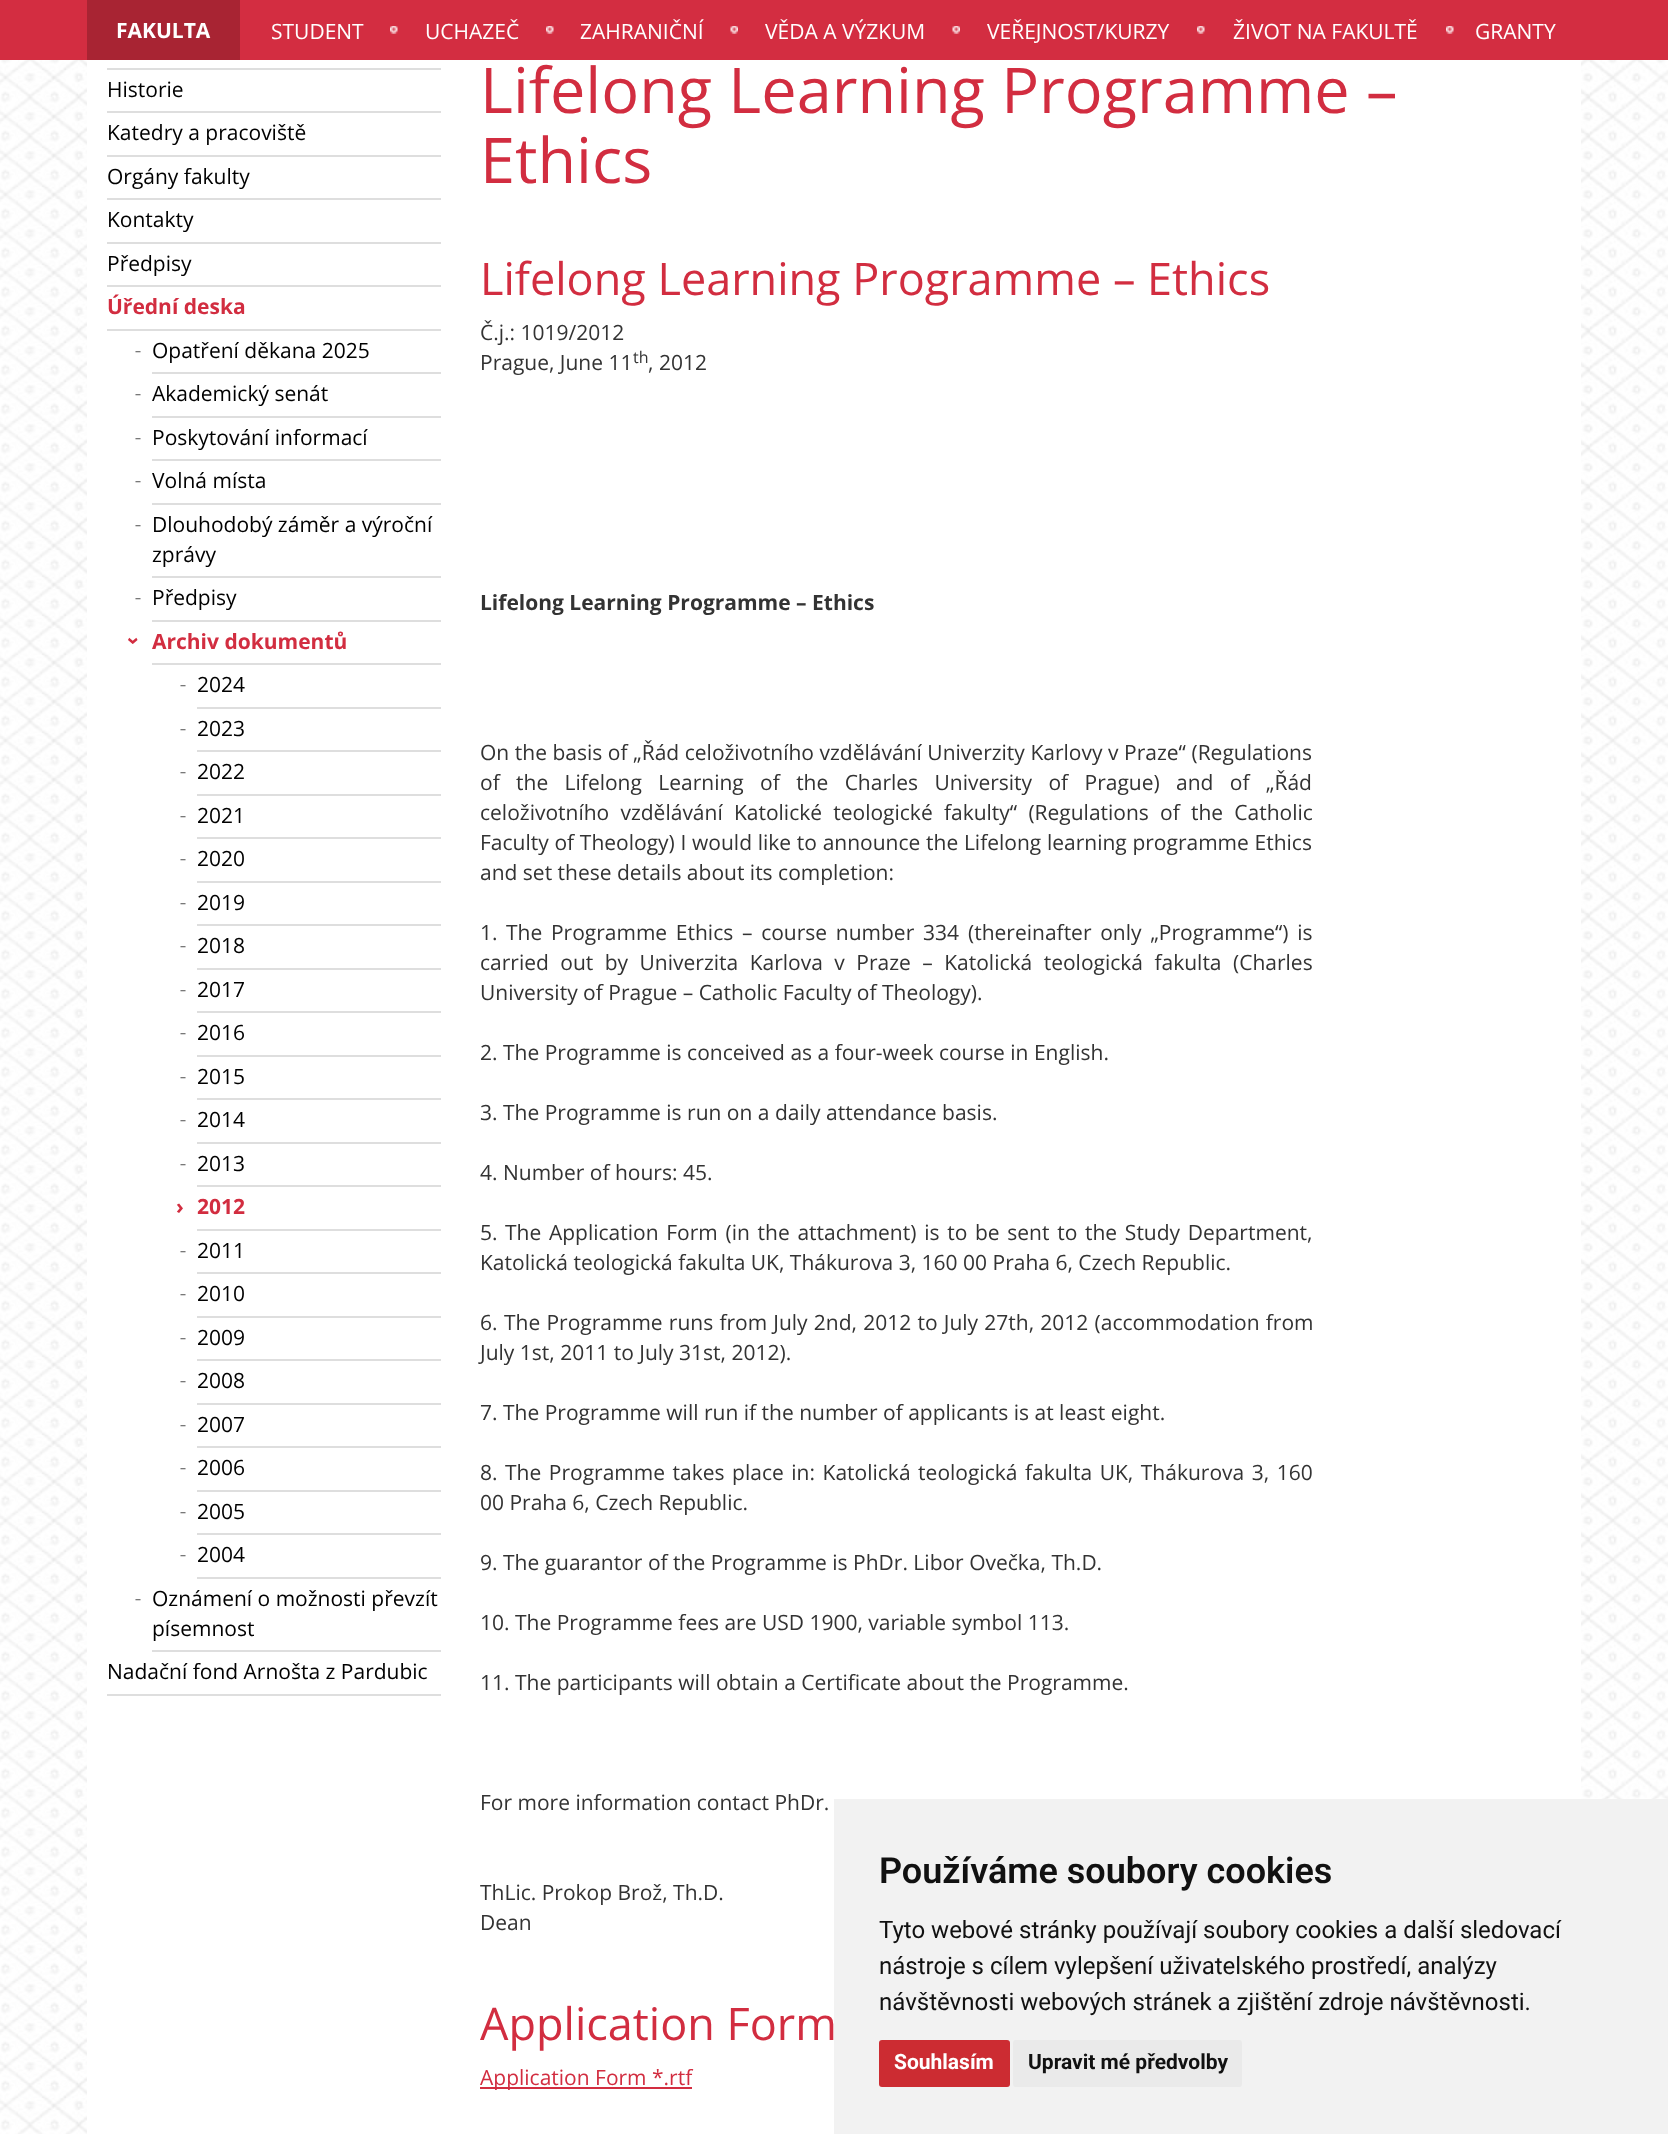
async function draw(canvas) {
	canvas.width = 1668;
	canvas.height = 2134;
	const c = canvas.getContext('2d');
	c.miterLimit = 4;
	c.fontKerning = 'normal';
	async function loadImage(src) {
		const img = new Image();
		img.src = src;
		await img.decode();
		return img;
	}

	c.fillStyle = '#fff';
	c.fillRect(0, 0, 1668, 2134);
	c.drawImage(await loadImage('img1.png'), 0, 60, 1668, 2074);
	c.fillStyle = '#d32d41';
	c.fillRect(0, 0, 1668, 60);
	c.fillStyle = '#a82433';
	c.fillRect(87, 0, 153, 60);
	c.font = 'bold 21px Open Sans';
	c.fillStyle = '#fff';
	c.fillText('FAKULTA', 116, 38);
	c.font = '21px Open Sans';
	c.fillText('STUDENT', 271, 39);
	c.drawImage(await loadImage('img2.png'), 390, 26, 8, 8);
	c.fillText('UCHAZEČ', 425, 39);
	c.drawImage(await loadImage('img2.png'), 546, 26, 8, 8);
	c.fillText('ZAHRANIČNÍ', 580, 39);
	c.drawImage(await loadImage('img3.png'), 730, 26, 8, 8);
	c.fillText('VĚDA A VÝZKUM', 765, 39);
	c.drawImage(await loadImage('img3.png'), 952, 26, 8, 8);
	c.fillText('VEŘEJNOST/KURZY', 987, 39);
	c.drawImage(await loadImage('img2.png'), 1197, 26, 8, 8);
	c.fillText('ŽIVOT NA FAKULTĚ', 1233, 39);
	c.drawImage(await loadImage('img2.png'), 1446, 26, 8, 8);
	c.fillText('GRANTY', 1475, 39);
	for (const [x, y, w, h, color] of [
		[87, 60, 1494, 2074, '#fff'],
		[107, 68, 334, 2, '#dedede'],
		[107, 111, 334, 2, '#dedede'],
	]) {
		c.fillStyle = color;
		c.fillRect(x, y, w, h);
	}
	c.fillStyle = '#000';
	c.fillText('Historie', 107, 97);
	c.fillStyle = '#dedede';
	c.fillRect(107, 155, 334, 2);
	c.fillStyle = '#000';
	c.fillText('Katedry a pracoviště', 107, 140);
	c.fillStyle = '#dedede';
	c.fillRect(107, 198, 334, 2);
	c.fillStyle = '#000';
	c.fillText('Orgány fakulty', 107, 184);
	c.fillStyle = '#dedede';
	c.fillRect(107, 242, 334, 2);
	c.fillStyle = '#000';
	c.fillText('Kontakty', 107, 227);
	c.fillStyle = '#dedede';
	c.fillRect(107, 285, 334, 2);
	c.fillStyle = '#000';
	c.fillText('Předpisy', 107, 271);
	c.fillStyle = '#dedede';
	c.fillRect(107, 329, 334, 2);
	c.font = 'bold 21px Open Sans';
	c.fillStyle = '#d22d40';
	c.fillText('Úřední deska', 107, 314);
	c.font = '12px Open Sans';
	c.fillStyle = '#333';
	c.fillText('–', 135, 355);
	c.fillStyle = '#dedede';
	c.fillRect(152, 372, 289, 2);
	c.font = '21px Open Sans';
	c.fillStyle = '#000';
	c.fillText('Opatření děkana 2025', 152, 358);
	c.font = '12px Open Sans';
	c.fillStyle = '#333';
	c.fillText('–', 135, 398);
	c.fillStyle = '#dedede';
	c.fillRect(152, 416, 289, 2);
	c.font = '21px Open Sans';
	c.fillStyle = '#000';
	c.fillText('Akademický senát', 152, 401);
	c.font = '12px Open Sans';
	c.fillStyle = '#333';
	c.fillText('–', 135, 442);
	c.fillStyle = '#dedede';
	c.fillRect(152, 459, 289, 2);
	c.font = '21px Open Sans';
	c.fillStyle = '#000';
	c.fillText('Poskytování informací', 152, 445);
	c.font = '12px Open Sans';
	c.fillStyle = '#333';
	c.fillText('–', 135, 485);
	c.fillStyle = '#dedede';
	c.fillRect(152, 503, 289, 2);
	c.font = '21px Open Sans';
	c.fillStyle = '#000';
	c.fillText('Volná místa', 152, 488);
	c.font = '12px Open Sans';
	c.fillStyle = '#333';
	c.fillText('–', 135, 529);
	c.fillStyle = '#dedede';
	c.fillRect(152, 576, 289, 2);
	c.font = '21px Open Sans';
	c.fillStyle = '#000';
	c.fillText('Dlouhodobý záměr a výroční', 152, 532);
	c.fillText('zprávy', 152, 562);
	c.font = '12px Open Sans';
	c.fillStyle = '#333';
	c.fillText('–', 135, 602);
	c.fillStyle = '#dedede';
	c.fillRect(152, 620, 289, 2);
	c.font = '21px Open Sans';
	c.fillStyle = '#000';
	c.fillText('Předpisy', 152, 605);
	c.font = 'bold 21px Open Sans';
	c.fillStyle = '#d22d40';
	c.save();
	c.translate(127, 637);
	c.rotate(90 * Math.PI / 180);
	c.fillText('›', 0, 0);
	c.restore();
	c.fillStyle = '#dedede';
	c.fillRect(152, 663, 289, 2);
	c.fillStyle = '#d22d40';
	c.fillText('Archiv dokumentů', 152, 649);
	c.font = '12px Open Sans';
	c.fillStyle = '#333';
	c.fillText('–', 180, 689);
	c.fillStyle = '#dedede';
	c.fillRect(197, 707, 244, 2);
	c.font = '21px Open Sans';
	c.fillStyle = '#000';
	c.fillText('2024', 197, 692);
	c.font = '12px Open Sans';
	c.fillStyle = '#333';
	c.fillText('–', 180, 733);
	c.fillStyle = '#dedede';
	c.fillRect(197, 750, 244, 2);
	c.font = '21px Open Sans';
	c.fillStyle = '#000';
	c.fillText('2023', 197, 736);
	c.font = '12px Open Sans';
	c.fillStyle = '#333';
	c.fillText('–', 180, 776);
	c.fillStyle = '#dedede';
	c.fillRect(197, 794, 244, 2);
	c.font = '21px Open Sans';
	c.fillStyle = '#000';
	c.fillText('2022', 197, 779);
	c.font = '12px Open Sans';
	c.fillStyle = '#333';
	c.fillText('–', 180, 820);
	c.fillStyle = '#dedede';
	c.fillRect(197, 837, 244, 2);
	c.font = '21px Open Sans';
	c.fillStyle = '#000';
	c.fillText('2021', 197, 823);
	c.font = '12px Open Sans';
	c.fillStyle = '#333';
	c.fillText('–', 180, 863);
	c.fillStyle = '#dedede';
	c.fillRect(197, 881, 244, 2);
	c.font = '21px Open Sans';
	c.fillStyle = '#000';
	c.fillText('2020', 197, 866);
	c.font = '12px Open Sans';
	c.fillStyle = '#333';
	c.fillText('–', 180, 907);
	c.fillStyle = '#dedede';
	c.fillRect(197, 924, 244, 2);
	c.font = '21px Open Sans';
	c.fillStyle = '#000';
	c.fillText('2019', 197, 910);
	c.font = '12px Open Sans';
	c.fillStyle = '#333';
	c.fillText('–', 180, 950);
	c.fillStyle = '#dedede';
	c.fillRect(197, 968, 244, 2);
	c.font = '21px Open Sans';
	c.fillStyle = '#000';
	c.fillText('2018', 197, 953);
	c.font = '12px Open Sans';
	c.fillStyle = '#333';
	c.fillText('–', 180, 994);
	c.fillStyle = '#dedede';
	c.fillRect(197, 1011, 244, 2);
	c.font = '21px Open Sans';
	c.fillStyle = '#000';
	c.fillText('2017', 197, 997);
	c.font = '12px Open Sans';
	c.fillStyle = '#333';
	c.fillText('–', 180, 1037);
	c.fillStyle = '#dedede';
	c.fillRect(197, 1055, 244, 2);
	c.font = '21px Open Sans';
	c.fillStyle = '#000';
	c.fillText('2016', 197, 1040);
	c.font = '12px Open Sans';
	c.fillStyle = '#333';
	c.fillText('–', 180, 1081);
	c.fillStyle = '#dedede';
	c.fillRect(197, 1098, 244, 2);
	c.font = '21px Open Sans';
	c.fillStyle = '#000';
	c.fillText('2015', 197, 1084);
	c.font = '12px Open Sans';
	c.fillStyle = '#333';
	c.fillText('–', 180, 1124);
	c.fillStyle = '#dedede';
	c.fillRect(197, 1142, 244, 2);
	c.font = '21px Open Sans';
	c.fillStyle = '#000';
	c.fillText('2014', 197, 1127);
	c.font = '12px Open Sans';
	c.fillStyle = '#333';
	c.fillText('–', 180, 1168);
	c.fillStyle = '#dedede';
	c.fillRect(197, 1185, 244, 2);
	c.font = '21px Open Sans';
	c.fillStyle = '#000';
	c.fillText('2013', 197, 1171);
	c.font = 'bold 21px Open Sans';
	c.fillStyle = '#d22d40';
	c.fillText('›', 176, 1214);
	c.fillStyle = '#dedede';
	c.fillRect(197, 1229, 244, 2);
	c.fillStyle = '#d22d40';
	c.fillText('2012', 197, 1214);
	c.font = '12px Open Sans';
	c.fillStyle = '#333';
	c.fillText('–', 180, 1255);
	c.fillStyle = '#dedede';
	c.fillRect(197, 1272, 244, 2);
	c.font = '21px Open Sans';
	c.fillStyle = '#000';
	c.fillText('2011', 197, 1258);
	c.font = '12px Open Sans';
	c.fillStyle = '#333';
	c.fillText('–', 180, 1298);
	c.fillStyle = '#dedede';
	c.fillRect(197, 1316, 244, 2);
	c.font = '21px Open Sans';
	c.fillStyle = '#000';
	c.fillText('2010', 197, 1301);
	c.font = '12px Open Sans';
	c.fillStyle = '#333';
	c.fillText('–', 180, 1342);
	c.fillStyle = '#dedede';
	c.fillRect(197, 1359, 244, 2);
	c.font = '21px Open Sans';
	c.fillStyle = '#000';
	c.fillText('2009', 197, 1345);
	c.font = '12px Open Sans';
	c.fillStyle = '#333';
	c.fillText('–', 180, 1385);
	c.fillStyle = '#dedede';
	c.fillRect(197, 1403, 244, 2);
	c.font = '21px Open Sans';
	c.fillStyle = '#000';
	c.fillText('2008', 197, 1388);
	c.font = '12px Open Sans';
	c.fillStyle = '#333';
	c.fillText('–', 180, 1429);
	c.fillStyle = '#dedede';
	c.fillRect(197, 1446, 244, 2);
	c.font = '21px Open Sans';
	c.fillStyle = '#000';
	c.fillText('2007', 197, 1432);
	c.font = '12px Open Sans';
	c.fillStyle = '#333';
	c.fillText('–', 180, 1472);
	c.fillStyle = '#dedede';
	c.fillRect(197, 1490, 244, 2);
	c.font = '21px Open Sans';
	c.fillStyle = '#000';
	c.fillText('2006', 197, 1475);
	c.font = '12px Open Sans';
	c.fillStyle = '#333';
	c.fillText('–', 180, 1516);
	c.fillStyle = '#dedede';
	c.fillRect(197, 1533, 244, 2);
	c.font = '21px Open Sans';
	c.fillStyle = '#000';
	c.fillText('2005', 197, 1519);
	c.font = '12px Open Sans';
	c.fillStyle = '#333';
	c.fillText('–', 180, 1559);
	c.fillStyle = '#dedede';
	c.fillRect(197, 1577, 244, 2);
	c.font = '21px Open Sans';
	c.fillStyle = '#000';
	c.fillText('2004', 197, 1562);
	c.font = '12px Open Sans';
	c.fillStyle = '#333';
	c.fillText('–', 135, 1603);
	c.fillStyle = '#dedede';
	c.fillRect(152, 1650, 289, 2);
	c.font = '21px Open Sans';
	c.fillStyle = '#000';
	c.fillText('Oznámení o možnosti převzít', 152, 1606);
	c.fillText('písemnost', 152, 1636);
	c.fillStyle = '#dedede';
	c.fillRect(107, 1694, 334, 2);
	c.fillStyle = '#000';
	c.fillText('Nadační fond Arnošta z Pardubic', 107, 1679);
	c.font = '63px Open Sans';
	c.fillStyle = '#d22d40';
	c.fillText('Lifelong Learning Programme –', 480, 113);
	c.fillText('Ethics', 480, 183);
	c.font = '45px Open Sans';
	c.fillText('Lifelong Learning Programme – Ethics', 480, 295);
	c.font = '21px Open Sans';
	c.fillStyle = '#333';
	c.fillText('Č.j.: 1019/2012', 480, 340);
	c.fillText('Prague, June 11', 480, 370);
	c.font = '16px Open Sans';
	c.fillText('th', 633, 363);
	c.font = '21px Open Sans';
	c.fillText(', 2012', 648, 370);
	c.font = 'bold 21px Open Sans';
	c.fillText('Lifelong Learning Programme – Ethics', 480, 610);
	c.wordSpacing = '0.1px';
	c.font = '21px Open Sans';
	c.fillText('On the basis of „Řád celoživotního vzdělávání Univerzity Karlovy v Praze“ (Regulations', 480, 760);
	c.wordSpacing = '10.9px';
	c.fillText('of the Lifelong Learning of the Charles University of Prague) and of „Řád', 480, 790);
	c.wordSpacing = '5.75px';
	c.fillText('celoživotního vzdělávání Katolické teologické fakulty“ (Regulations of the Catholic', 480, 820);
	c.wordSpacing = '0.25px';
	c.fillText('Faculty of Theology) I would like to announce the Lifelong learning programme Ethics', 480, 850);
	c.wordSpacing = '0px';
	c.fillText('and set these details about its completion:', 480, 880);
	c.fillText('1.', 480, 940);
	c.wordSpacing = '3.25px';
	c.fillText('The Programme Ethics – course number 334', 506, 940);
	c.fillText('(thereinafter only „Programme“) is', 968, 940);
	c.wordSpacing = '6px';
	c.fillText('carried out by Univerzita Karlova v Praze – Katolická teologická fakulta (Charles', 480, 970);
	c.wordSpacing = '0px';
	for (const [text, x, y] of [
		['University of Prague – Catholic Faculty of Theology).', 480, 1000],
		['2. The Programme is conceived as a four-week course in English.', 480, 1060],
		['3. The Programme is run on a daily attendance basis.', 480, 1120],
		['4. Number of hours: 45.', 480, 1180],
		['5.', 480, 1240],
	]) {
		c.fillText(text, x, y);
	}
	c.wordSpacing = '2.25px';
	c.fillText('The Application Form (in the attachment) is to be sent to the Study Department,', 505, 1240);
	c.wordSpacing = '0px';
	c.fillText('Katolická teologická fakulta UK, Thákurova 3, 160 00 Praha 6, Czech Republic.', 480, 1270);
	c.fillText('6.', 480, 1330);
	c.wordSpacing = '0.75px';
	c.fillText('The Programme runs from July 2nd, 2012 to July 27th, 2012 (accommodation from', 504, 1330);
	c.wordSpacing = '0px';
	for (const [text, x, y] of [
		['July 1st, 2011 to July 31st, 2012).', 480, 1360],
		['7. The Programme will run if the number of applicants is at least eight.', 480, 1420],
		['8.', 480, 1480],
	]) {
		c.fillText(text, x, y);
	}
	c.wordSpacing = '2.1px';
	c.fillText('The Programme takes place in: Katolická teologická fakulta UK, Thákurova 3, 160', 505, 1480);
	c.wordSpacing = '0px';
	for (const [text, x, y] of [
		['00 Praha 6, Czech Republic.', 480, 1510],
		['9. The guarantor of the Programme is PhDr. Libor Ovečka, Th.D.', 480, 1570],
		['10. The Programme fees are USD 1900, variable symbol 113.', 480, 1630],
		['11. The participants will obtain a Certificate about the Programme.', 480, 1690],
		['For more information contact PhDr.', 480, 1810],
		['ThLic. Prokop Brož, Th.D.', 480, 1900],
		['Dean', 480, 1930],
	]) {
		c.fillText(text, x, y);
	}
	c.font = '45px Open Sans';
	c.fillStyle = '#d22d40';
	c.fillText('Application Form', 480, 2040);
	c.fillRect(480, 2087, 212, 2);
	c.font = '21px Open Sans';
	c.fillText('Application Form *.rtf', 480, 2085);
	c.fillStyle = '#f2f2f2';
	c.fillRect(834, 1799, 834, 335);
	c.font = '600 36px Roboto';
	c.fillStyle = '#111';
	c.fillText('Používáme soubory cookies', 879, 1883);
	c.font = '24px Roboto';
	for (const [text, x, y] of [
		['Tyto webové stránky používají soubory cookies a další sledovací', 879, 1938],
		['nástroje s cílem vylepšení uživatelského prostředí, analýzy', 879, 1974],
		['návštěvnosti webových stránek a zjištění zdroje návštěvnosti.', 879, 2010],
	]) {
		c.fillText(text, x, y);
	}
	c.fillStyle = '#cc2c32';
	c.beginPath();
	c.roundRect(879, 2040, 131, 47, 3);
	c.fill();
	c.font = 'bold 21px Roboto';
	c.fillStyle = '#fff';
	c.fillText('Souhlasím', 894, 2069);
	c.fillStyle = '#eaeaea';
	c.beginPath();
	c.roundRect(1013, 2040, 229, 47, 3);
	c.fill();
	c.fillStyle = '#111';
	c.fillText('Upravit mé předvolby', 1028, 2069);
}

draw(document.querySelector('canvas'));
